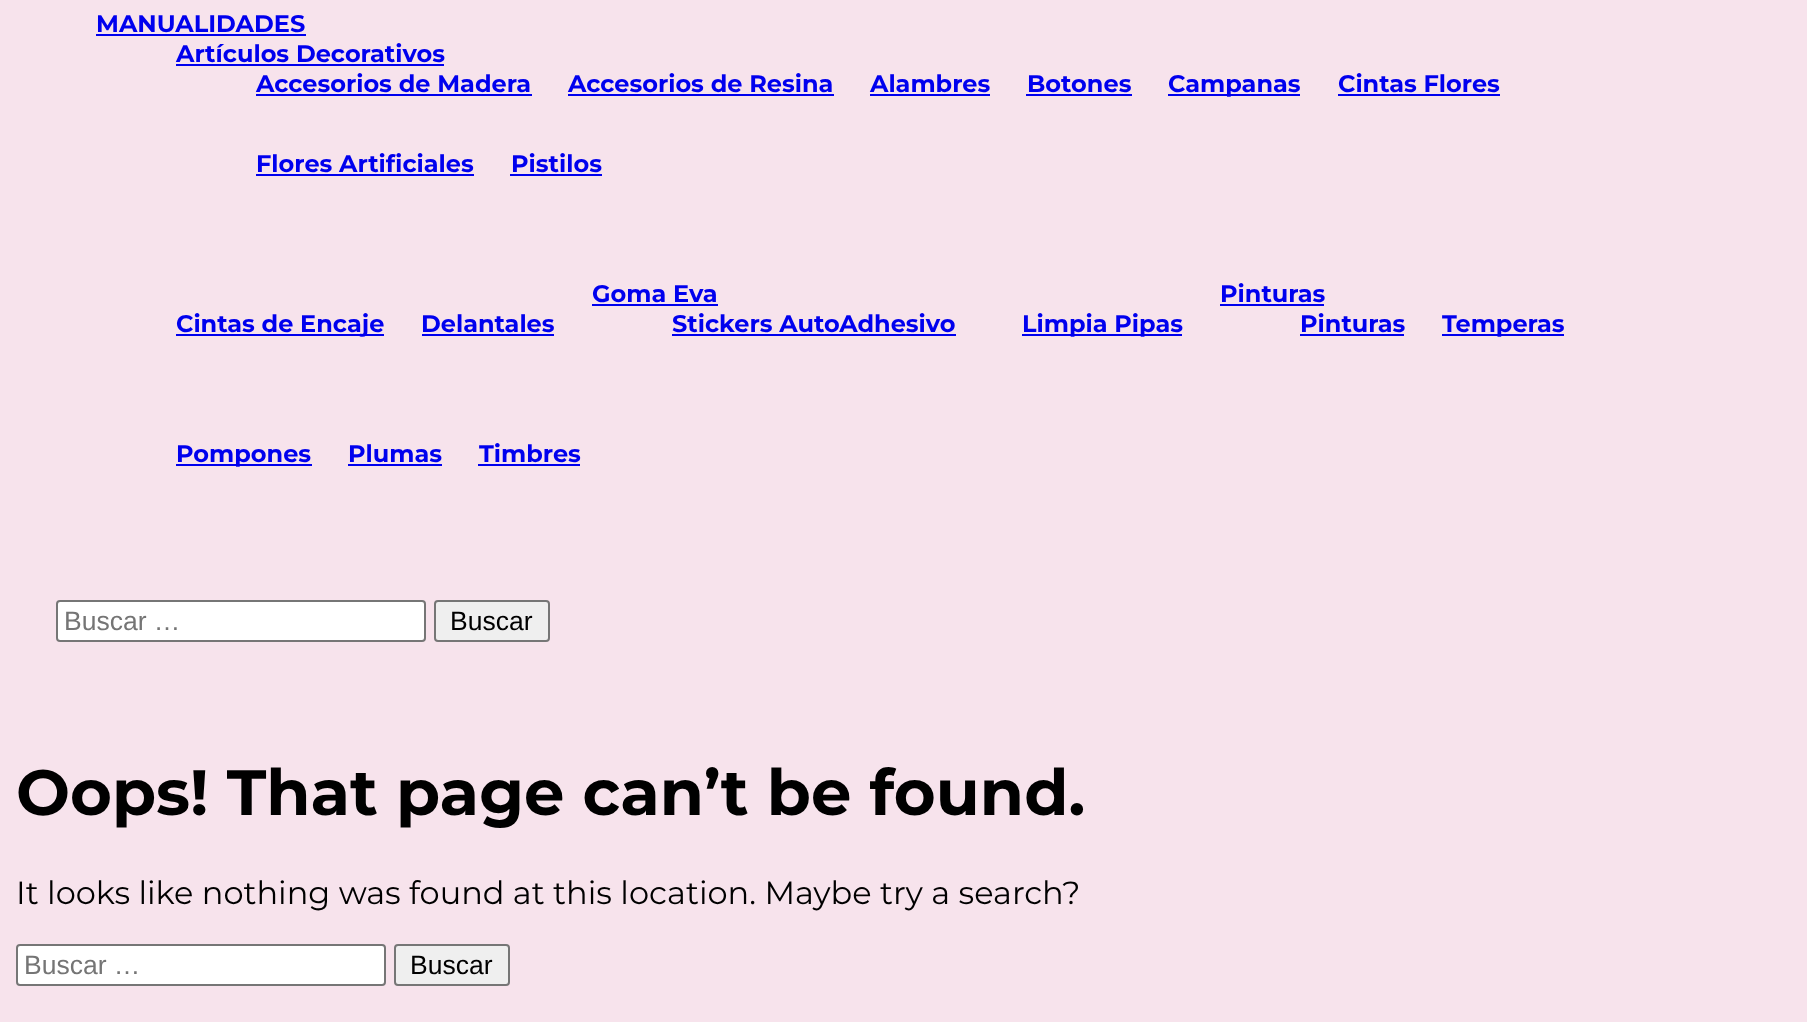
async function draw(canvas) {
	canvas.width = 1807;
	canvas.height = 1022;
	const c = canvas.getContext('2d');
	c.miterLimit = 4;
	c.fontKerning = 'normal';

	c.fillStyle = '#f7e3ec';
	c.fillRect(0, 0, 1807, 1022);
	c.font = 'bold 24px Montserrat';
	c.fillStyle = '#00e';
	c.fillText('MANUALIDADES', 96, 32);
	c.fillRect(96, 34, 210, 2);
	c.fillText('Artículos Decorativos', 176, 62);
	c.fillRect(176, 64, 268, 2);
	c.fillText('Accesorios de Madera', 256, 92);
	c.fillRect(256, 94, 276, 2);
	c.fillText('Accesorios de Resina', 568, 92);
	c.fillRect(568, 94, 266, 2);
	c.fillText('Alambres', 870, 92);
	c.fillRect(870, 94, 120, 2);
	c.fillText('Botones', 1027, 92);
	c.fillRect(1026, 94, 106, 2);
	c.fillRect(1168, 94, 132, 2);
	c.fillText('Campanas', 1168, 92);
	c.fillText('Cintas Flores', 1338, 92);
	c.fillRect(1338, 94, 162, 2);
	c.fillText('Flores Artificiales', 256, 172);
	c.fillRect(256, 174, 218, 2);
	c.fillText('Pistilos', 511, 172);
	c.fillRect(510, 174, 92, 2);
	c.fillRect(176, 334, 208, 2);
	c.fillText('Cintas de Encaje', 176, 332);
	c.fillText('Delantales', 421, 332);
	c.fillRect(422, 334, 132, 2);
	c.fillText('Goma Eva', 592, 302);
	c.fillRect(592, 304, 126, 2);
	c.fillText('Stickers AutoAdhesivo', 672, 332);
	c.fillRect(672, 334, 284, 2);
	c.fillRect(1022, 334, 160, 2);
	c.fillText('Limpia Pipas', 1022, 332);
	c.fillText('Pinturas', 1220, 302);
	c.fillRect(1220, 304, 104, 2);
	c.fillText('Pinturas', 1300, 332);
	c.fillRect(1300, 334, 104, 2);
	c.fillRect(1442, 334, 122, 2);
	c.fillText('Temperas', 1442, 332);
	c.fillRect(176, 464, 136, 2);
	c.fillText('Pompones', 176, 462);
	c.fillText('Plumas', 348, 462);
	c.fillRect(348, 464, 94, 2);
	c.fillText('Timbres', 479, 462);
	c.fillRect(478, 464, 102, 2);
	c.fillStyle = '#fff';
	c.beginPath();
	c.roundRect(57, 601, 368, 40, 3);
	c.fill();
	c.strokeStyle = '#767676';
	c.lineWidth = 2;
	c.stroke();
	c.font = '26.5px Liberation Sans';
	c.fillStyle = '#757575';
	c.fillText('Buscar …', 64, 630);
	c.fillStyle = '#efefef';
	c.beginPath();
	c.roundRect(435, 601, 114, 40, 3);
	c.fill();
	c.stroke();
	c.fillStyle = '#000';
	c.fillText('Buscar', 450, 630);
	c.font = 'bold 64px Montserrat';
	c.fillText('Oops! That page can’t be found.', 16, 815);
	c.font = '32px Montserrat';
	c.fillText('It looks like nothing was found at this location. Maybe try a search?', 16, 904);
	c.fillStyle = '#fff';
	c.beginPath();
	c.roundRect(17, 945, 368, 40, 3);
	c.fill();
	c.stroke();
	c.font = '26.5px Liberation Sans';
	c.fillStyle = '#757575';
	c.fillText('Buscar …', 24, 974);
	c.fillStyle = '#efefef';
	c.beginPath();
	c.roundRect(395, 945, 114, 40, 3);
	c.fill();
	c.stroke();
	c.fillStyle = '#000';
	c.fillText('Buscar', 410, 974);
}

draw(document.querySelector('canvas'));
